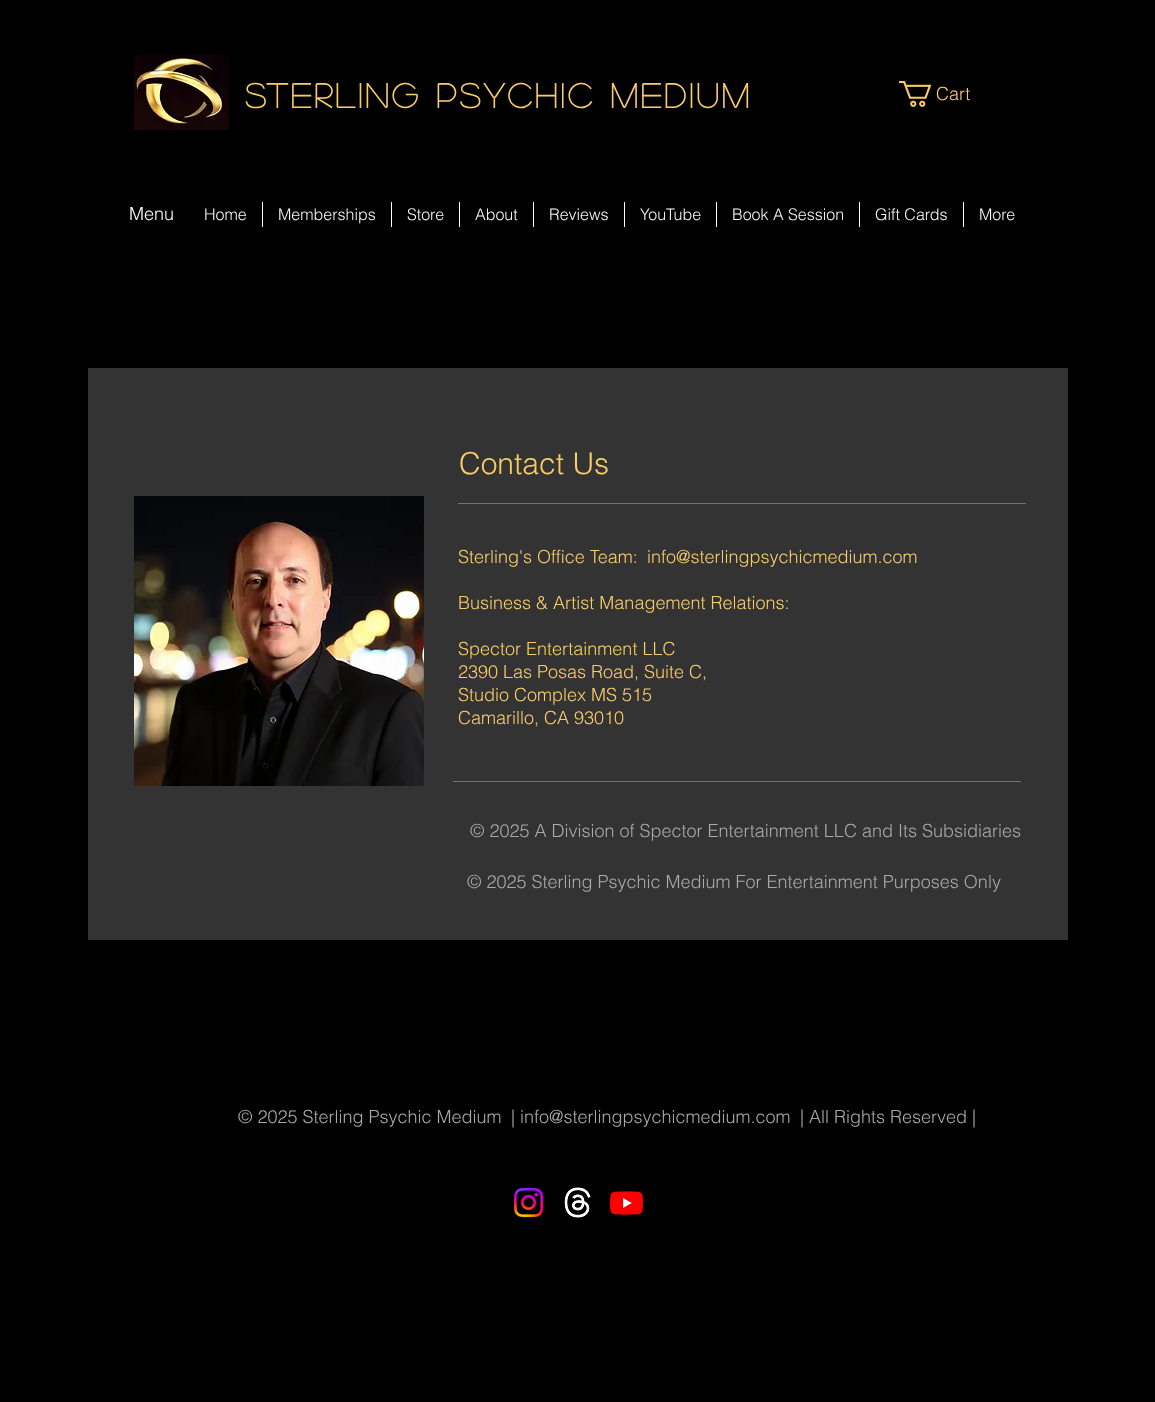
async function draw(canvas) {
	canvas.width = 1155;
	canvas.height = 1402;
	const c = canvas.getContext('2d');
	c.miterLimit = 4;
	c.fontKerning = 'normal';
	async function loadImage(src) {
		const img = new Image();
		img.src = src;
		await img.decode();
		return img;
	}

	c.fillStyle = '#000';
	c.fillRect(0, 0, 1155, 1402);
	c.drawImage(await loadImage('img1.png'), 134, 55, 95, 75);
	c.letterSpacing = '3.4px';
	c.font = 'bold 34px "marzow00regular"';
	c.fillStyle = '#f9cc6a';
	c.fillText('Sterling Psychic medium', 245, 108);
	c.drawImage(await loadImage('img2.png'), 899, 81, 33, 26);
	c.letterSpacing = '0px';
	c.font = '300 18px helvetica';
	c.fillText('Cart', 936, 100);
	c.fillStyle = '#fff';
	c.fillText('Menu', 129, 220);
	c.font = '300 16px helvetica';
	c.fillStyle = '#f9f4f4';
	c.fillText('Home', 204, 220);
	c.fillStyle = '#fff';
	c.fillRect(262, 202, 1, 25);
	c.fillStyle = '#f9f4f4';
	c.fillText('Memberships', 278, 220);
	c.fillStyle = '#fff';
	c.fillRect(391, 202, 1, 25);
	c.fillStyle = '#f9f4f4';
	c.fillText('Store', 407, 220);
	c.fillStyle = '#fff';
	c.fillRect(459, 202, 1, 25);
	c.fillStyle = '#f9f4f4';
	c.fillText('About', 475, 220);
	c.fillStyle = '#fff';
	c.fillRect(533, 202, 1, 25);
	c.fillStyle = '#f9f4f4';
	c.fillText('Reviews', 549, 220);
	c.fillStyle = '#fff';
	c.fillRect(624, 202, 1, 25);
	c.fillStyle = '#f9f4f4';
	c.fillText('YouTube', 640, 220);
	c.fillStyle = '#fff';
	c.fillRect(716, 202, 1, 25);
	c.fillStyle = '#f9f4f4';
	c.fillText('Book A Session', 732, 220);
	c.fillStyle = '#fff';
	c.fillRect(859, 202, 1, 25);
	c.fillStyle = '#f9f4f4';
	c.fillText('Gift Cards', 875, 220);
	c.fillStyle = '#fff';
	c.fillRect(963, 202, 1, 25);
	c.fillStyle = '#f9f4f4';
	c.fillText('More', 979, 220);
	c.fillStyle = '#343333';
	c.fillRect(88, 368, 980, 572);
	c.font = '300 30px helvetica';
	c.fillStyle = '#f9cc6a';
	c.fillText('Contact Us', 459, 474);
	c.drawImage(await loadImage('img3.png'), 134, 496, 290, 290);
	c.fillStyle = '#737171';
	c.fillRect(458, 503, 568, 1);
	c.font = '300 18px helvetica';
	c.fillStyle = '#f9cc6a';
	for (const [text, x, y] of [
		['Sterling\'s Office Team:', 458, 563],
		['info@sterlingpsychicmedium.com', 647, 563],
		['Business & Artist Management Relations:', 458, 609],
		['Spector Entertainment LLC', 458, 655],
		['2390 Las Posas Road, Suite C,', 458, 678],
		['Studio Complex MS 515', 458, 701],
		['Camarillo, CA 93010', 458, 724],
	]) {
		c.fillText(text, x, y);
	}
	c.fillStyle = '#737171';
	c.fillRect(453, 781, 568, 1);
	c.fillStyle = '#a9a9a9';
	for (const [text, x, y] of [
		['© 2025 A Division of Spector Entertainment LLC and Its Subsidiaries', 470, 837],
		['© 2025 Sterling Psychic Medium For Entertainment Purposes Only', 467, 888],
		['© 2025 Sterling Psychic Medium', 238, 1123],
		['| info@sterlingpsychicmedium.com', 511, 1123],
		['| All Rights Reserved |', 800, 1123],
	]) {
		c.fillText(text, x, y);
	}
	c.drawImage(await loadImage('img4.png'), 513, 1187, 31, 31);
	c.drawImage(await loadImage('img5.png'), 564, 1187, 27, 31);
	c.drawImage(await loadImage('img6.png'), 609, 1191, 35, 24);
}

draw(document.querySelector('canvas'));
